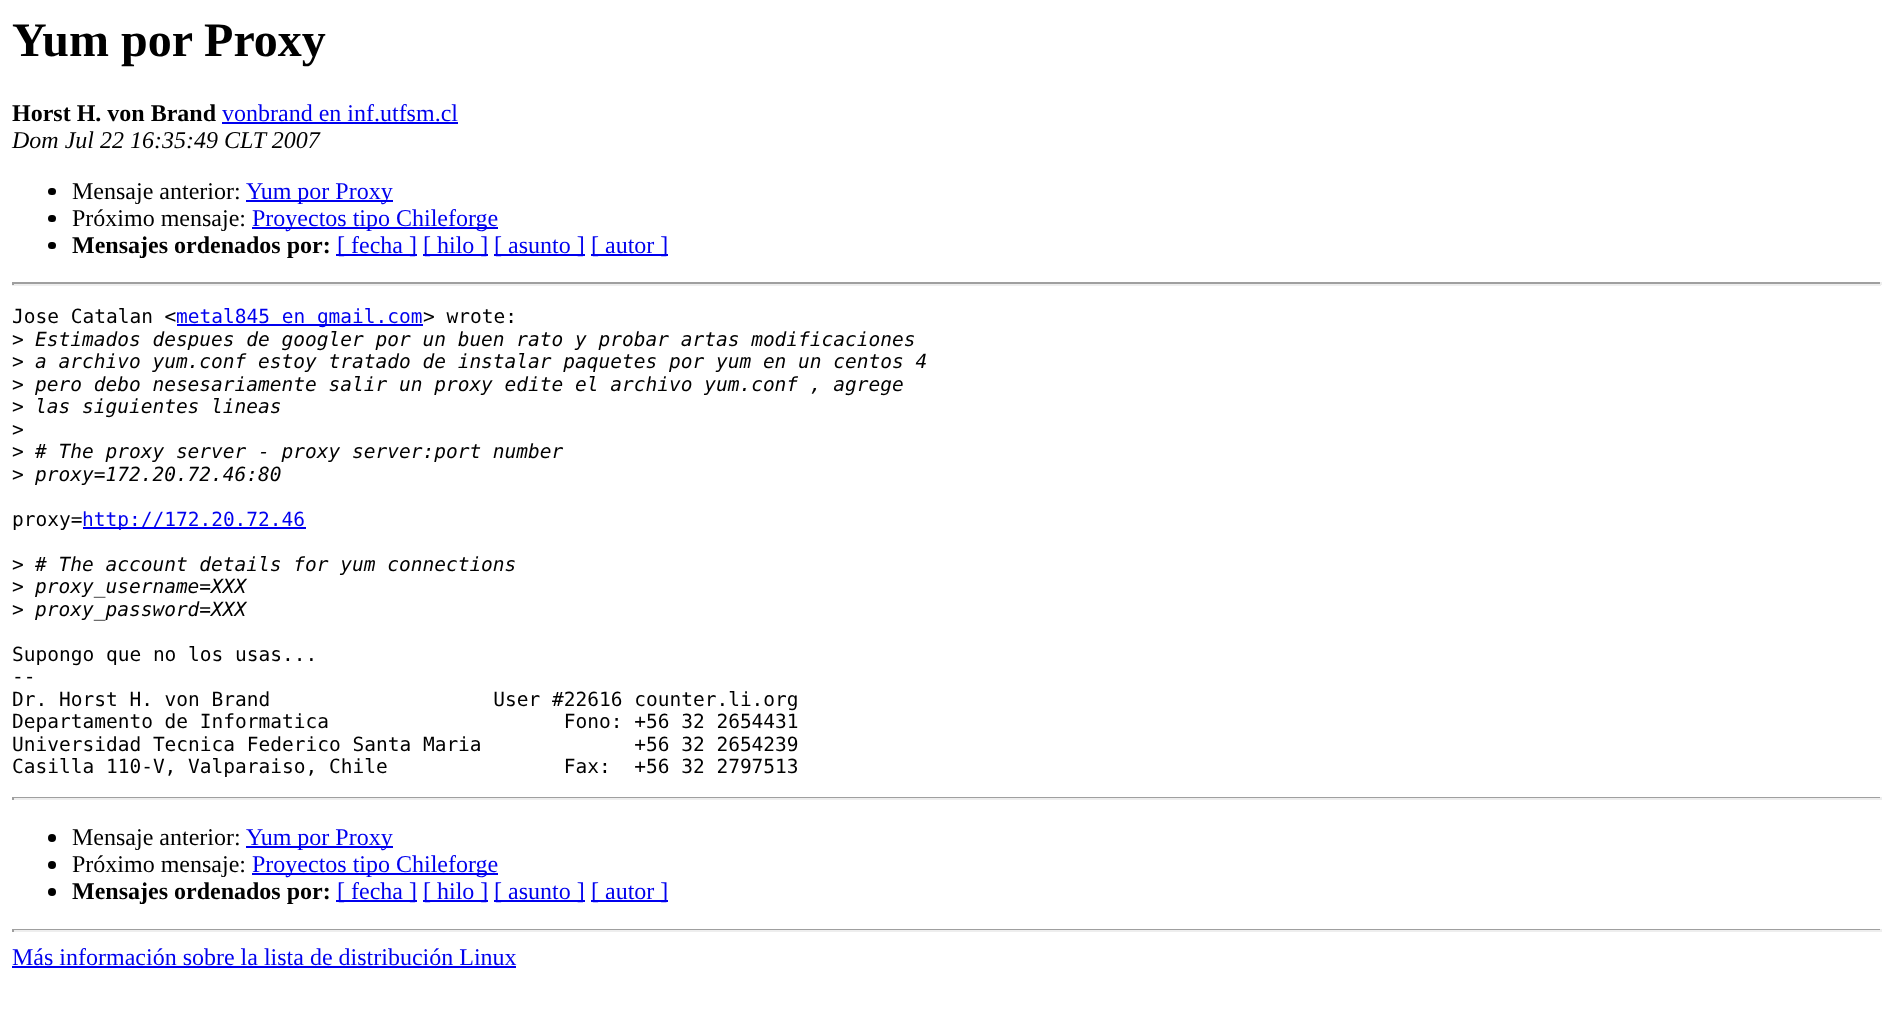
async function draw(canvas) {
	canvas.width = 1893;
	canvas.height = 1029;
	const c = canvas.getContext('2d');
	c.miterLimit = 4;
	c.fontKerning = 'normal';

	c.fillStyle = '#fff';
	c.fillRect(0, 0, 1893, 1029);
	c.font = 'bold 48px Liberation Serif';
	c.fillStyle = '#000';
	c.fillText('Yum por Proxy', 12, 56);
	c.font = 'bold 24px Liberation Serif';
	c.fillText('Horst H. von Brand', 12, 121);
	c.font = '24px Liberation Serif';
	c.fillStyle = '#00e';
	c.fillText('vonbrand en inf.utfsm.cl', 222, 121);
	c.fillRect(222, 122, 236, 2);
	c.font = 'italic 24px Liberation Serif';
	c.fillStyle = '#000';
	c.fillText('Dom Jul 22 16:35:49 CLT 2007', 12, 148);
	c.beginPath();
	c.roundRect(48, 188, 8, 7, 3.5);
	c.fill();
	c.font = '24px Liberation Serif';
	c.fillText('Mensaje anterior:', 72, 199);
	c.fillStyle = '#00e';
	c.fillRect(246, 200, 147, 2);
	c.fillText('Yum por Proxy', 246, 199);
	c.fillStyle = '#000';
	c.beginPath();
	c.roundRect(48, 215, 8, 7, 3.5);
	c.fill();
	c.fillText('Próximo mensaje:', 72, 226);
	c.fillStyle = '#00e';
	c.fillRect(252, 227, 246, 2);
	c.fillText('Proyectos tipo Chileforge', 252, 226);
	c.fillStyle = '#000';
	c.beginPath();
	c.roundRect(48, 242, 8, 7, 3.5);
	c.fill();
	c.font = 'bold 24px Liberation Serif';
	c.fillText('Mensajes ordenados por:', 72, 253);
	c.fillStyle = '#00e';
	c.fillRect(336, 254, 81, 2);
	c.font = '24px Liberation Serif';
	c.fillText('[ fecha ]', 337, 253);
	c.fillRect(423, 254, 65, 2);
	c.fillText('[ hilo ]', 423, 253);
	c.fillRect(494, 254, 91, 2);
	c.fillText('[ asunto ]', 494, 253);
	c.fillRect(591, 254, 77, 2);
	c.fillText('[ autor ]', 591, 253);
	for (const [x, y, w, h, color] of [
		[12, 282, 1869, 2, '#9f9f9f'],
		[1880, 282, 2, 3, '#eee'],
		[12, 284, 1869, 2, '#eee'],
		[12, 282, 2, 3, '#9f9f9f'],
	]) {
		c.fillStyle = color;
		c.fillRect(x, y, w, h);
	}
	c.font = '19.5px DejaVu Sans Mono';
	c.fillStyle = '#000';
	c.fillText('Jose Catalan <', 12, 323);
	c.fillStyle = '#00e';
	c.fillRect(177, 324, 246, 2);
	c.fillText('metal845 en gmail.com', 176, 323);
	c.fillStyle = '#000';
	c.fillText('> wrote:', 423, 323);
	c.fillText('>', 12, 346);
	c.font = 'italic 19.5px DejaVu Sans Mono';
	c.fillText('Estimados despues de googler por un buen rato y probar artas modificaciones', 35, 346);
	c.font = '19.5px DejaVu Sans Mono';
	c.fillText('>', 12, 368);
	c.font = 'italic 19.5px DejaVu Sans Mono';
	c.fillText('a archivo yum.conf estoy tratado de instalar paquetes por yum en un centos 4', 35, 368);
	c.font = '19.5px DejaVu Sans Mono';
	c.fillText('>', 12, 391);
	c.font = 'italic 19.5px DejaVu Sans Mono';
	c.fillText('pero debo nesesariamente salir un proxy edite el archivo yum.conf , agrege', 35, 391);
	c.font = '19.5px DejaVu Sans Mono';
	c.fillText('>', 12, 413);
	c.font = 'italic 19.5px DejaVu Sans Mono';
	c.fillText('las siguientes lineas', 35, 413);
	c.font = '19.5px DejaVu Sans Mono';
	c.fillText('>', 12, 436);
	c.fillText('>', 12, 458);
	c.font = 'italic 19.5px DejaVu Sans Mono';
	c.fillText('# The proxy server - proxy server:port number', 35, 458);
	c.font = '19.5px DejaVu Sans Mono';
	c.fillText('>', 12, 481);
	c.font = 'italic 19.5px DejaVu Sans Mono';
	c.fillText('proxy=172.20.72.46:80', 35, 481);
	c.font = '19.5px DejaVu Sans Mono';
	c.fillText('proxy=', 12, 526);
	c.fillStyle = '#00e';
	c.fillRect(83, 527, 223, 2);
	c.fillText('http://172.20.72.46', 82, 526);
	c.fillStyle = '#000';
	c.fillText('>', 12, 571);
	c.font = 'italic 19.5px DejaVu Sans Mono';
	c.fillText('# The account details for yum connections', 35, 571);
	c.font = '19.5px DejaVu Sans Mono';
	c.fillText('>', 12, 593);
	c.font = 'italic 19.5px DejaVu Sans Mono';
	c.fillText('proxy_username=XXX', 35, 593);
	c.font = '19.5px DejaVu Sans Mono';
	c.fillText('>', 12, 616);
	c.font = 'italic 19.5px DejaVu Sans Mono';
	c.fillText('proxy_password=XXX', 35, 616);
	c.font = '19.5px DejaVu Sans Mono';
	for (const [text, x, y] of [
		['Supongo que no los usas...', 12, 661],
		['--', 12, 683],
		['Dr. Horst H. von Brand                   User #22616 counter.li.org', 12, 706],
		['Departamento de Informatica                    Fono: +56 32 2654431', 12, 728],
		['Universidad Tecnica Federico Santa Maria             +56 32 2654239', 12, 751],
		['Casilla 110-V, Valparaiso, Chile               Fax:  +56 32 2797513', 12, 773],
	]) {
		c.fillText(text, x, y);
	}
	for (const [x, y, w, h, color] of [
		[12, 797, 1869, 1, '#9f9f9f'],
		[1880, 797, 2, 3, '#eee'],
		[12, 798, 1869, 2, '#eee'],
		[12, 797, 2, 3, '#9f9f9f'],
	]) {
		c.fillStyle = color;
		c.fillRect(x, y, w, h);
	}
	c.fillStyle = '#000';
	c.beginPath();
	c.arc(52, 838, 4, 0, 2 * Math.PI);
	c.fill();
	c.font = '24px Liberation Serif';
	c.fillText('Mensaje anterior:', 72, 845);
	c.fillStyle = '#00e';
	c.fillRect(246, 846, 147, 2);
	c.fillText('Yum por Proxy', 246, 845);
	c.fillStyle = '#000';
	c.beginPath();
	c.arc(52, 865, 4, 0, 2 * Math.PI);
	c.fill();
	c.fillText('Próximo mensaje:', 72, 872);
	c.fillStyle = '#00e';
	c.fillRect(252, 873, 246, 2);
	c.fillText('Proyectos tipo Chileforge', 252, 872);
	c.fillStyle = '#000';
	c.beginPath();
	c.arc(52, 892, 4, 0, 2 * Math.PI);
	c.fill();
	c.font = 'bold 24px Liberation Serif';
	c.fillText('Mensajes ordenados por:', 72, 899);
	c.fillStyle = '#00e';
	c.fillRect(336, 900, 81, 2);
	c.font = '24px Liberation Serif';
	c.fillText('[ fecha ]', 337, 899);
	c.fillRect(423, 900, 65, 2);
	c.fillText('[ hilo ]', 423, 899);
	c.fillRect(494, 900, 91, 2);
	c.fillText('[ asunto ]', 494, 899);
	c.fillRect(591, 900, 77, 2);
	c.fillText('[ autor ]', 591, 899);
	for (const [x, y, w, h, color] of [
		[12, 929, 1869, 1, '#9f9f9f'],
		[1880, 929, 2, 3, '#eee'],
		[12, 930, 1869, 2, '#eee'],
		[12, 929, 2, 3, '#9f9f9f'],
	]) {
		c.fillStyle = color;
		c.fillRect(x, y, w, h);
	}
	c.fillStyle = '#00e';
	c.fillText('Más información sobre la lista de distribución Linux', 12, 965);
	c.fillRect(12, 966, 504, 2);
}

draw(document.querySelector('canvas'));
